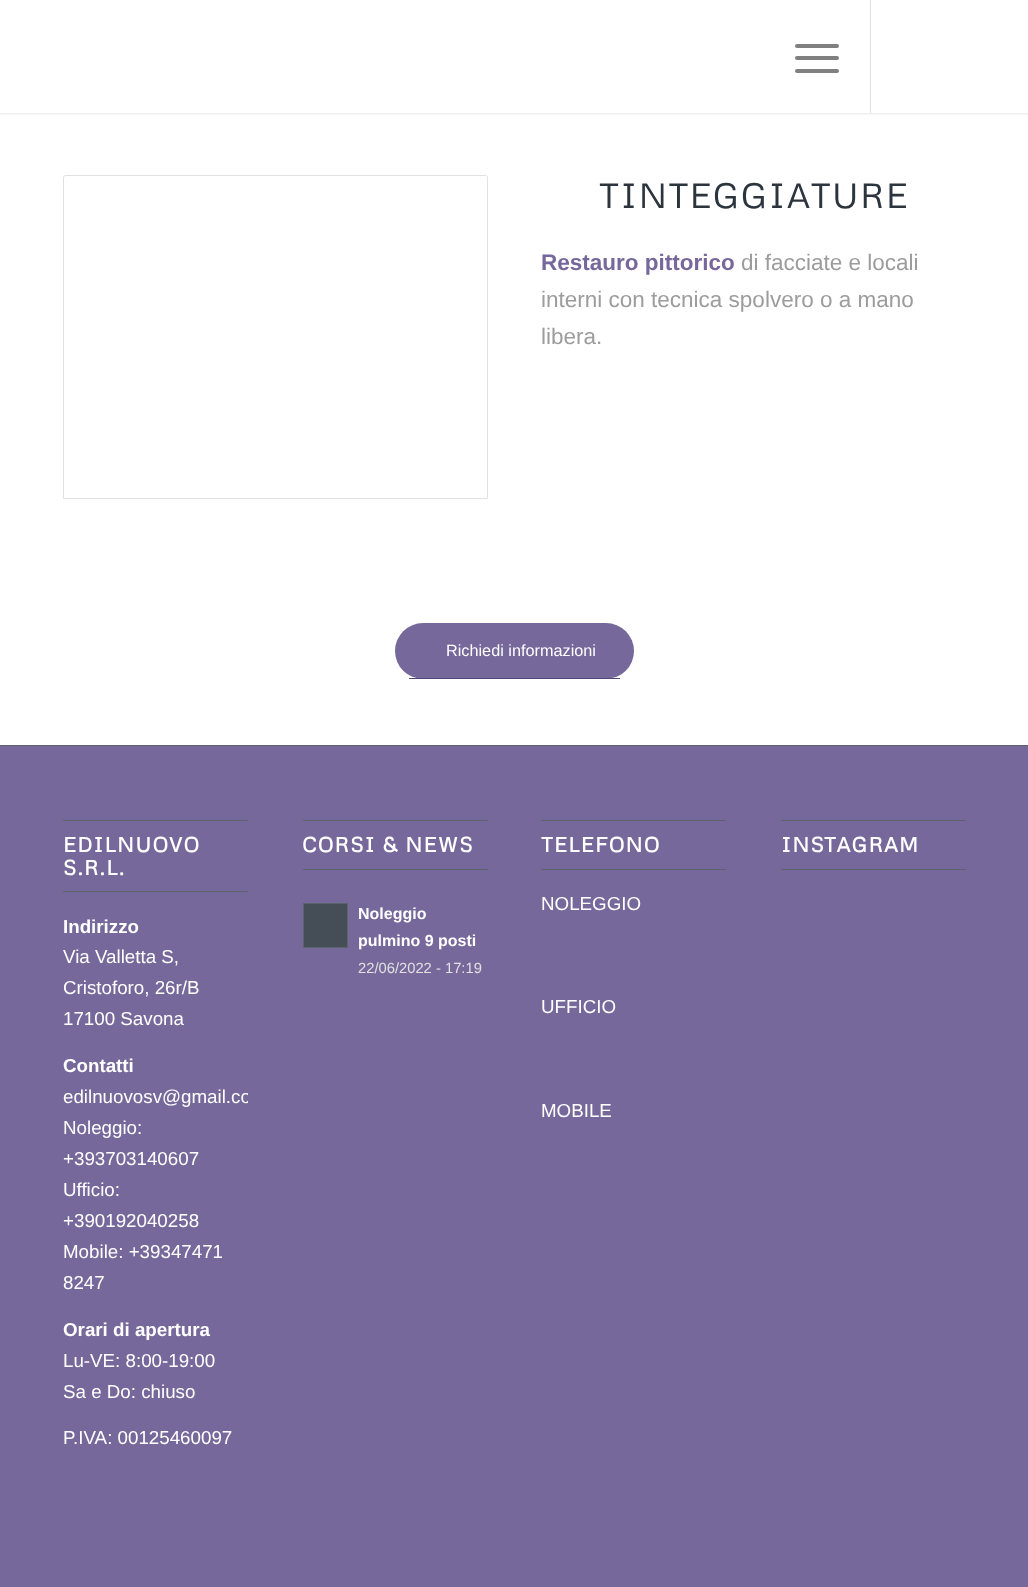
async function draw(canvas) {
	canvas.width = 1028;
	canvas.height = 1587;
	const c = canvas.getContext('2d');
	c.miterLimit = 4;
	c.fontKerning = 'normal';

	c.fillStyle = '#fff';
	c.fillRect(0, 0, 1028, 1587);
	c.fillStyle = '#0000001a';
	c.filter = 'blur(1px)';
	c.beginPath();
	c.rect(-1, -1, 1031, 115);
	c.fill();
	c.filter = 'none';
	c.fillStyle = '#fff';
	c.fillRect(0, 0, 1028, 113);
	c.fillStyle = '#e1e1e1';
	c.fillRect(870, 0, 1, 113);
	c.fillStyle = '#808080';
	c.beginPath();
	c.roundRect(795, 56, 44, 4, 2);
	c.fill();
	c.beginPath();
	c.roundRect(795, 44, 44, 4, 2);
	c.fill();
	c.beginPath();
	c.roundRect(795, 69, 44, 4, 2);
	c.fill();
	c.beginPath();
	c.roundRect(63.5, 175.5, 424, 323, [2, 2, 0, 0]);
	c.strokeStyle = '#e1e1e1';
	c.stroke();
	c.letterSpacing = '1.25px';
	c.font = '35px Metrophobic';
	c.fillStyle = '#2c353d';
	c.fillText('TINTEGGIATURE', 599, 208);
	c.letterSpacing = '0px';
	c.font = 'bold 22.5px Liberation Sans';
	c.fillStyle = '#76689a';
	c.fillText('Restauro pittorico', 541, 270);
	c.font = '22.5px Liberation Sans';
	c.fillStyle = '#9c9c9c';
	for (const [text, x, y] of [
		['di facciate e locali', 741, 270],
		['interni con tecnica spolvero o a mano', 541, 307],
		['libera.', 541, 344],
	]) {
		c.fillText(text, x, y);
	}
	c.fillStyle = '#76689a';
	c.beginPath();
	c.roundRect(395, 623, 239, 56, 28);
	c.fill();
	c.fillStyle = '#544678';
	c.fillRect(409, 678, 211, 1);
	c.font = '16.25px Liberation Sans';
	c.fillStyle = '#fff';
	c.fillText('Richiedi informazioni', 446, 656);
	for (const [x, y, w, h, color] of [
		[0, 746, 1028, 841, '#76689a'],
		[0, 745, 1028, 1, '#5b646b'],
		[63, 820, 185, 1, '#5b646b'],
		[63, 891, 185, 1, '#5b646b'],
	]) {
		c.fillStyle = color;
		c.fillRect(x, y, w, h);
	}
	c.letterSpacing = '1.25px';
	c.font = 'bold 20.6px Metrophobic';
	c.fillStyle = '#fff';
	c.fillText('EDILNUOVO', 63, 852);
	c.fillText('S.R.L.', 63, 875);
	c.letterSpacing = '0px';
	c.font = 'bold 18.75px Liberation Sans';
	c.fillText('Indirizzo', 63, 933);
	c.font = '18.75px Liberation Sans';
	for (const [text, x, y] of [
		['Via Valletta S,', 63, 963],
		['Cristoforo, 26r/B', 63, 994],
		['17100 Savona', 63, 1025],
	]) {
		c.fillText(text, x, y);
	}
	c.font = 'bold 18.75px Liberation Sans';
	c.fillText('Contatti', 63, 1072);
	c.save();
	c.beginPath();
	c.rect(63, 803, 185, 667);
	c.clip();
	c.font = '18.75px Liberation Sans';
	c.fillText('edilnuovosv@gmail.co', 63, 1103);
	c.restore();
	c.font = '18.75px Liberation Sans';
	for (const [text, x, y] of [
		['Noleggio:', 63, 1134],
		['+393703140607', 63, 1165],
		['Ufficio:', 63, 1196],
		['+390192040258', 63, 1227],
		['Mobile: +39347471', 63, 1258],
		['8247', 63, 1289],
	]) {
		c.fillText(text, x, y);
	}
	c.font = 'bold 18.75px Liberation Sans';
	c.fillText('Orari di apertura', 63, 1336);
	c.font = '18.75px Liberation Sans';
	for (const [text, x, y] of [
		['Lu-VE: 8:00-19:00', 63, 1367],
		['Sa e Do: chiuso', 63, 1398],
		['P.IVA: 00125460097', 63, 1444],
	]) {
		c.fillText(text, x, y);
	}
	c.fillStyle = '#5b646b';
	c.fillRect(303, 820, 185, 1);
	c.fillRect(303, 869, 185, 1);
	c.letterSpacing = '1.25px';
	c.font = 'bold 20.6px Metrophobic';
	c.fillStyle = '#fff';
	c.fillText('CORSI & NEWS', 302, 852);
	c.fillStyle = '#454e57';
	c.beginPath();
	c.rect(303.5, 903.5, 44, 44);
	c.fill();
	c.strokeStyle = '#5b646b';
	c.stroke();
	c.letterSpacing = '0px';
	c.font = 'bold 16px Liberation Sans';
	c.fillStyle = '#fff';
	c.fillText('Noleggio', 358, 919);
	c.fillText('pulmino 9 posti', 358, 946);
	c.font = '14.75px Liberation Sans';
	c.fillStyle = '#e1e1e1';
	c.fillText('22/06/2022 - 17:19', 358, 973);
	c.fillStyle = '#5b646b';
	c.fillRect(541, 820, 185, 1);
	c.fillRect(541, 869, 185, 1);
	c.letterSpacing = '1.25px';
	c.font = 'bold 20.6px Metrophobic';
	c.fillStyle = '#fff';
	c.fillText('TELEFONO', 541, 852);
	c.letterSpacing = '0px';
	c.font = '18.75px Liberation Sans';
	for (const [text, x, y] of [
		['NOLEGGIO', 541, 910],
		['UFFICIO', 541, 1013],
		['MOBILE', 541, 1117],
	]) {
		c.fillText(text, x, y);
	}
	c.fillStyle = '#5b646b';
	c.fillRect(781, 820, 185, 1);
	c.fillRect(781, 869, 185, 1);
	c.letterSpacing = '1.25px';
	c.font = 'bold 20.6px Metrophobic';
	c.fillStyle = '#fff';
	c.fillText('INSTAGRAM', 781, 852);
}

draw(document.querySelector('canvas'));
